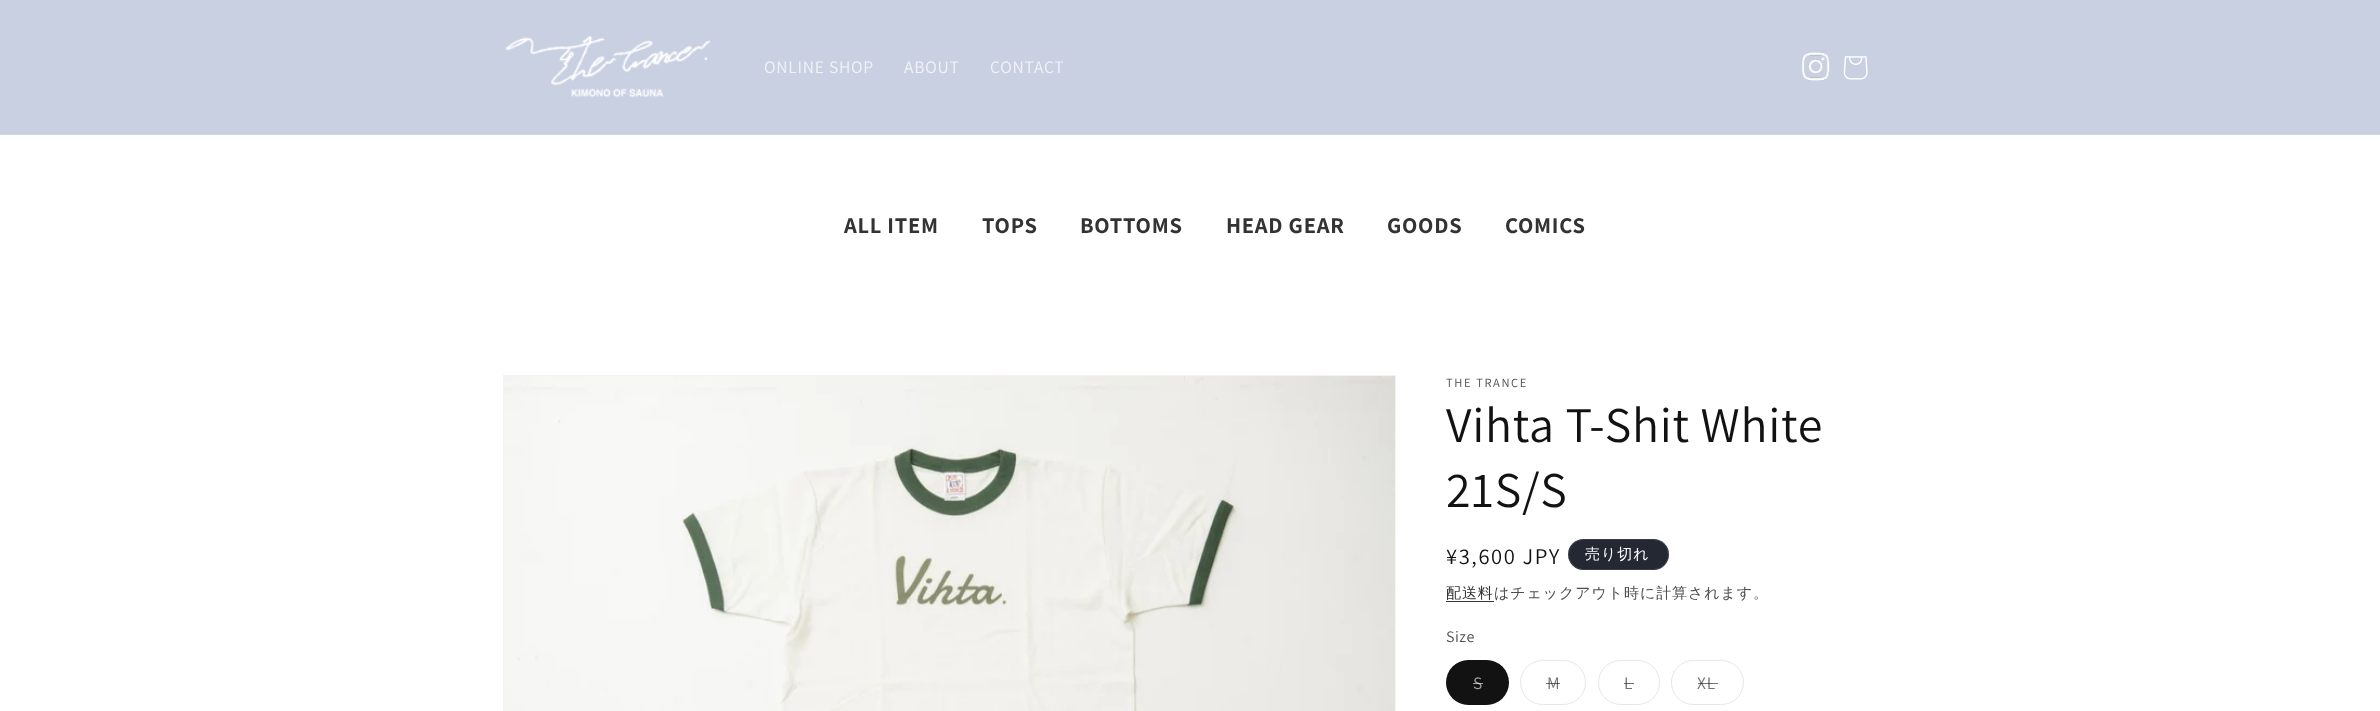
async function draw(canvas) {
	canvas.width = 2380;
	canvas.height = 711;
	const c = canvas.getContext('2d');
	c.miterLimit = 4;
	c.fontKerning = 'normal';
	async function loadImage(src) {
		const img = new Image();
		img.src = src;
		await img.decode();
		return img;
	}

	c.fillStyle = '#fff';
	c.fillRect(0, 0, 2380, 711);
	c.fillStyle = '#c9d0e2';
	c.fillRect(0, 0, 2380, 134);
	c.fillStyle = '#cdd4e4';
	c.fillRect(0, 134, 2380, 1);
	c.drawImage(await loadImage('img1.png'), 505, 36, 206, 62);
	c.letterSpacing = '0.75px';
	c.font = '17.5px Assistant';
	c.fillStyle = '#f2f3f8';
	for (const [text, x, y] of [
		['ONLINE SHOP', 764, 73],
		['ABOUT', 904, 73],
		['CONTACT', 990, 73],
	]) {
		c.fillText(text, x, y);
	}
	c.drawImage(await loadImage('img2.png'), 1802, 52, 28, 29);
	c.drawImage(await loadImage('img3.png'), 1843, 56, 25, 24);
	c.font = 'bold 22.5px Assistant';
	c.fillStyle = '#333';
	for (const [text, x, y] of [
		['ALL ITEM', 844, 233],
		['TOPS', 982, 233],
		['BOTTOMS', 1080, 233],
		['HEAD GEAR', 1226, 233],
		['GOODS', 1387, 233],
		['COMICS', 1505, 233],
	]) {
		c.fillText(text, x, y);
	}
	c.strokeStyle = '#f3f3f3';
	c.strokeRect(503.5, 375.5, 892, 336);
	c.drawImage(await loadImage('img4.png'), 504, 376, 891, 335);
	c.letterSpacing = '1.6px';
	c.font = '12.5px Assistant';
	c.fillStyle = '#4d4d4d';
	c.fillText('THE TRANCE', 1446, 387);
	c.letterSpacing = '0.75px';
	c.font = '50px Assistant';
	c.fillStyle = '#121212';
	c.fillText('Vihta T-Shit White', 1446, 442);
	c.fillText('21S/S', 1446, 507);
	c.letterSpacing = '1.6px';
	c.font = '22.5px Assistant';
	c.fillText('¥3,600 JPY', 1446, 564);
	c.fillStyle = '#242833';
	c.beginPath();
	c.roundRect(1568, 539, 101, 31, 15.5);
	c.fill();
	c.beginPath();
	c.roundRect(1568.5, 539.5, 100, 30, 15);
	c.strokeStyle = '#ffffff1a';
	c.stroke();
	c.letterSpacing = '1px';
	c.font = '500 15px WenQuanYi Zen Hei';
	c.fillStyle = '#fff';
	c.fillText('売り切れ', 1585, 559);
	c.letterSpacing = '0.9px';
	c.fillStyle = '#333';
	c.fillText('配送料', 1446, 598);
	c.fillStyle = '#363636';
	c.fillRect(1446, 601, 48, 1);
	c.fillStyle = '#4d4d4d';
	c.fillText('はチェックアウト時に計算されます。', 1494, 598);
	c.letterSpacing = '0.5px';
	c.font = '16px Assistant';
	c.fillText('Size', 1446, 642);
	c.fillStyle = '#121212';
	c.beginPath();
	c.roundRect(1446, 660, 63, 45, 22.5);
	c.fill();
	c.beginPath();
	c.roundRect(1446.5, 660.5, 62, 44, 22);
	c.strokeStyle = '#1212121a';
	c.stroke();
	c.letterSpacing = '1px';
	c.font = '17.5px Assistant';
	c.fillStyle = '#a0a0a0';
	c.fillText('S', 1473, 689);
	c.fillStyle = '#ffffff99';
	c.fillRect(1473, 683, 10, 1);
	c.beginPath();
	c.roundRect(1520.5, 660.5, 65, 44, 22);
	c.strokeStyle = '#e7e7e7';
	c.stroke();
	c.fillStyle = '#717171';
	c.fillText('M', 1547, 689);
	c.fillStyle = '#12121299';
	c.fillRect(1546, 683, 14, 1);
	c.beginPath();
	c.roundRect(1598.5, 660.5, 61, 44, 22);
	c.stroke();
	c.fillStyle = '#717171';
	c.fillText('L', 1624, 689);
	c.fillStyle = '#12121299';
	c.fillRect(1624, 683, 10, 1);
	c.beginPath();
	c.roundRect(1671.5, 660.5, 72, 44, 22);
	c.stroke();
	c.fillStyle = '#717171';
	c.fillText('XL', 1697, 689);
	c.fillStyle = '#12121299';
	c.fillRect(1698, 683, 20, 1);
}

draw(document.querySelector('canvas'));
